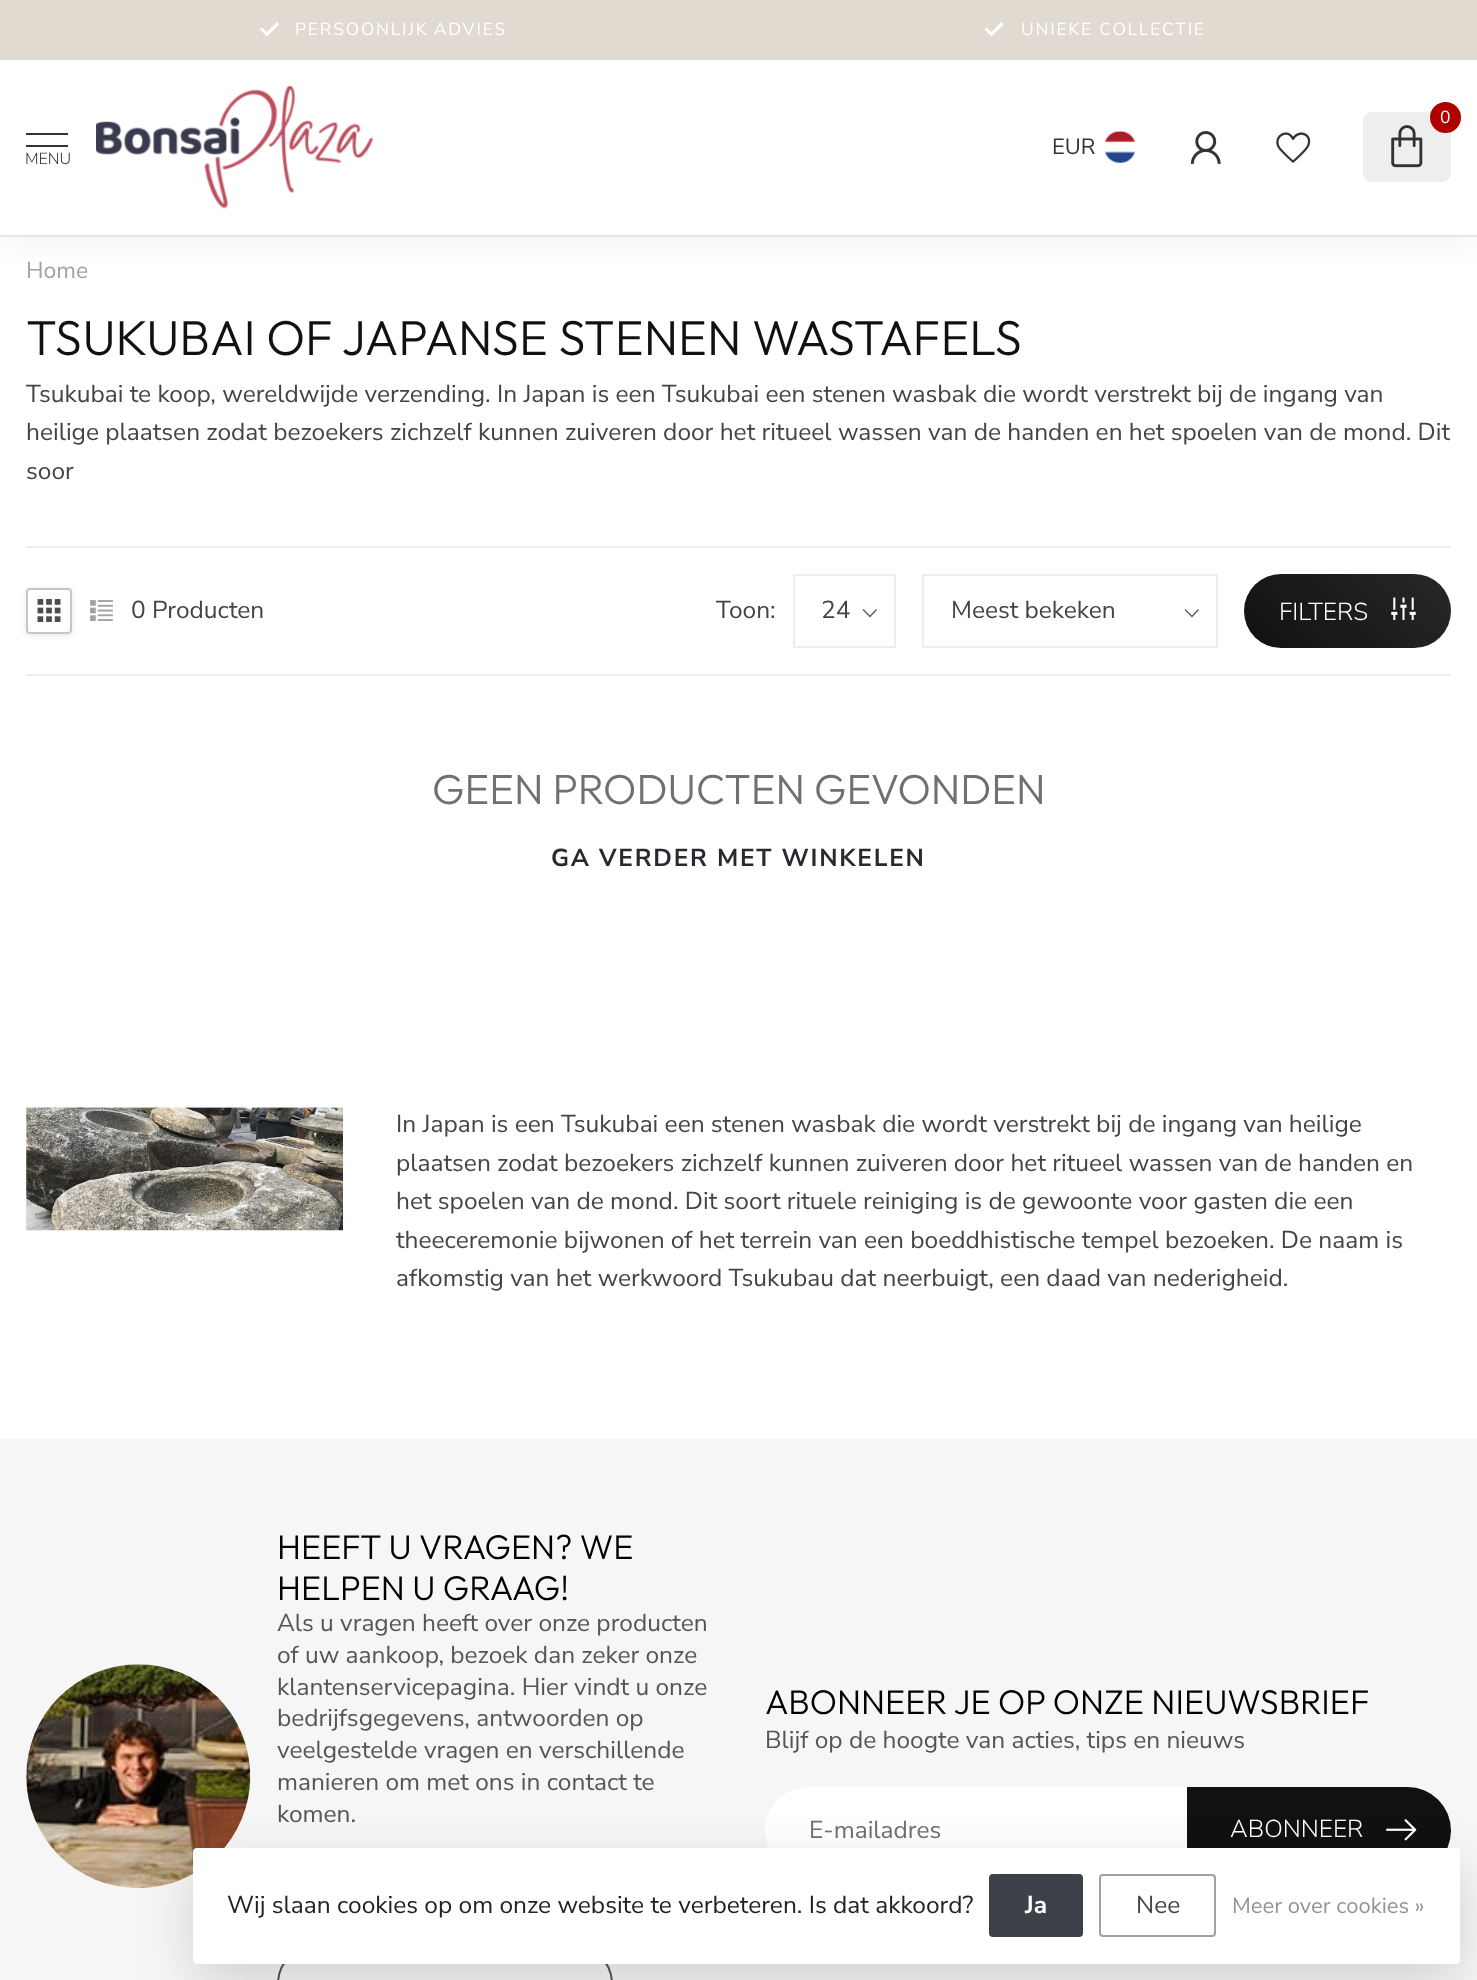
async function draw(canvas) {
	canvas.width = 1477;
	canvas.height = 1980;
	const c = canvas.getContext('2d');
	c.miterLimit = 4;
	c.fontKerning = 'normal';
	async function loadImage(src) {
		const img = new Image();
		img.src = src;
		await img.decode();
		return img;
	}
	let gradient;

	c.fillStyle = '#fff';
	c.fillRect(0, 0, 1477, 1980);
	c.fillStyle = '#eee';
	c.fillRect(0, 235, 1477, 2);
	c.fillStyle = '#00000012';
	c.filter = 'blur(17.5px)';
	c.beginPath();
	c.rect(0, 0, 1477, 235);
	c.fill();
	c.filter = 'none';
	c.fillStyle = '#fff';
	c.fillRect(0, 60, 1477, 175);
	c.fillStyle = '#e0dad1';
	c.fillRect(0, 0, 1477, 60);
	c.fillStyle = '#fff';
	c.beginPath();
	c.moveTo(267, 36.5);
	c.lineTo(260, 29.5);
	c.lineTo(262, 27.5);
	c.lineTo(267, 32);
	c.lineTo(277, 22);
	c.lineTo(279, 24.5);
	c.closePath();
	c.fill();
	c.letterSpacing = '1.75px';
	c.wordSpacing = '-1px';
	c.font = '17.5px Nunito Sans';
	c.fillText('PERSOONLIJK ADVIES', 295, 35);
	c.beginPath();
	c.moveTo(991.5, 36.5);
	c.lineTo(984.5, 29.5);
	c.lineTo(986.5, 27.5);
	c.lineTo(991.5, 32);
	c.lineTo(1001.5, 22);
	c.lineTo(1003.5, 24.5);
	c.closePath();
	c.fill();
	c.wordSpacing = '0px';
	c.fillText('UNIEKE COLLECTIE', 1021, 35);
	c.fillStyle = '#eee';
	c.beginPath();
	c.roundRect(1363, 112, 88, 70, 9);
	c.fill();
	c.fillStyle = '#af0000';
	c.beginPath();
	c.arc(1445.5, 117.5, 15.5, 0, 2 * Math.PI);
	c.fill();
	c.letterSpacing = '0px';
	c.fillStyle = '#fff';
	c.fillText('0', 1440, 123);
	c.drawImage(await loadImage('img1.png'), 1391, 125, 32, 43);
	c.font = '22px Nunito Sans';
	c.fillStyle = '#333';
	c.fillText('EUR', 1052, 154);
	c.drawImage(await loadImage('img2.png'), 1104, 130, 32, 33);
	c.drawImage(await loadImage('img3.png'), 1190, 131, 31, 33);
	c.drawImage(await loadImage('img4.png'), 1276, 132, 35, 31);
	c.fillRect(26, 133, 42, 2);
	c.fillRect(26, 145, 42, 2);
	c.font = '300 16px Nunito Sans';
	c.fillText('MENU', 25, 164);
	c.drawImage(await loadImage('img5.png'), 96, 86, 278, 123);
	c.font = '23px Nunito Sans';
	c.fillStyle = '#a2a2a2';
	c.fillText('Home', 26, 278);
	c.font = '300 49px Outfit';
	c.fillStyle = '#111';
	c.fillText('TSUKUBAI OF JAPANSE STENEN WASTAFELS', 26, 355);
	c.font = '24.5px Nunito Sans';
	c.fillStyle = '#444';
	for (const [text, x, y] of [
		['Tsukubai te koop, wereldwijde verzending. In Japan is een Tsukubai een stenen wasbak die wordt verstrekt bij de ingang van', 26, 402],
		['heilige plaatsen zodat bezoekers zichzelf kunnen zuiveren door het ritueel wassen van de handen en het spoelen van de mond. Dit', 26, 440],
		['soor', 26, 479],
	]) {
		c.fillText(text, x, y);
	}
	c.fillStyle = '#eee';
	c.fillRect(26, 546, 1425, 2);
	c.fillRect(26, 674, 1425, 2);
	c.save();
	c.beginPath();
	c.moveTo(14, 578);
	c.lineTo(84, 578);
	c.lineTo(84, 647);
	c.lineTo(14, 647);
	c.closePath();
	c.moveTo(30, 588);
	c.lineTo(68, 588);
	c.bezierCurveTo(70, 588, 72, 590, 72, 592);
	c.lineTo(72, 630);
	c.bezierCurveTo(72, 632, 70, 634, 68, 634);
	c.lineTo(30, 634);
	c.bezierCurveTo(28, 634, 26, 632, 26, 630);
	c.lineTo(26, 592);
	c.bezierCurveTo(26, 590, 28, 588, 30, 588);
	c.closePath();
	c.clip('evenodd');
	c.fillStyle = '#0000001a';
	c.filter = 'blur(3.5px)';
	c.beginPath();
	c.roundRect(26, 590, 46, 45, 4);
	c.fill();
	c.filter = 'none';
	c.restore();
	c.beginPath();
	c.roundRect(27, 589, 44, 44, 3);
	c.strokeStyle = '#c6c6c6';
	c.lineWidth = 2;
	c.stroke();
	c.drawImage(await loadImage('img6.png'), 37, 599, 24, 23);
	c.drawImage(await loadImage('img7.png'), 90, 600, 23, 21);
	c.fillStyle = '#444';
	c.fillText('0 Producten', 131, 618);
	c.fillText('Toon:', 716, 618);
	c.beginPath();
	c.moveTo(876.5, 609.5);
	c.lineTo(870, 616.5);
	c.lineTo(863, 609.5);
	c.strokeStyle = '#595959';
	c.lineWidth = 1.3;
	c.stroke();
	c.strokeStyle = '#eee';
	c.lineWidth = 2;
	c.strokeRect(794, 575, 101, 72);
	c.fillText('24', 821, 618);
	c.beginPath();
	c.moveTo(1198.5, 609.5);
	c.lineTo(1192, 616.5);
	c.lineTo(1185, 609.5);
	c.strokeStyle = '#595959';
	c.lineWidth = 1.3;
	c.stroke();
	c.strokeStyle = '#eee';
	c.lineWidth = 2;
	c.strokeRect(923, 575, 294, 72);
	c.fillText('Meest bekeken', 951, 618);
	gradient = c.createLinearGradient(1278, 681, 1418, 541);
	gradient.addColorStop(0, '#111');
	gradient.addColorStop(1, '#282828');
	c.fillStyle = gradient;
	c.beginPath();
	c.roundRect(1244, 574, 207, 74, 37);
	c.fill();
	c.font = '300 24.5px Nunito Sans';
	c.fillStyle = '#fff';
	c.fillText('FILTERS', 1279, 620);
	c.drawImage(await loadImage('img8.png'), 1391, 597, 25, 23);
	c.font = '300 42px Outfit';
	c.fillStyle = '#707070';
	c.fillText('GEEN PRODUCTEN GEVONDEN', 432, 804);
	c.letterSpacing = '1.75px';
	c.font = 'bold 24.5px Nunito Sans';
	c.fillStyle = '#282a30';
	c.fillText('GA VERDER MET WINKELEN', 551, 866);
	c.drawImage(await loadImage('img9.png'), 26, 1106, 317, 125);
	c.letterSpacing = '0px';
	c.font = '24.5px Nunito Sans';
	c.fillStyle = '#444';
	for (const [text, x, y] of [
		['In Japan is een Tsukubai een stenen wasbak die wordt verstrekt bij de ingang van heilige', 396, 1132],
		['plaatsen zodat bezoekers zichzelf kunnen zuiveren door het ritueel wassen van de handen en', 396, 1171],
		['het spoelen van de mond. Dit soort rituele reiniging is de gewoonte voor gasten die een', 396, 1209],
		['theeceremonie bijwonen of het terrein van een boeddhistische tempel bezoeken. De naam is', 396, 1248],
		['afkomstig van het werkwoord Tsukubau dat neerbuigt, een daad van nederigheid.', 396, 1286],
	]) {
		c.fillText(text, x, y);
	}
	c.fillStyle = '#f6f6f6';
	c.fillRect(0, 1439, 1477, 541);
	c.drawImage(await loadImage('img10.png'), 26, 1664, 225, 225);
	c.font = '300 34.25px Outfit';
	c.fillStyle = '#000';
	c.fillText('HEEFT U VRAGEN? WE', 277, 1559);
	c.fillText('HELPEN U GRAAG!', 277, 1600);
	c.font = '24.5px Nunito Sans';
	c.fillStyle = '#555';
	for (const [text, x, y] of [
		['Als u vragen heeft over onze producten', 277, 1631],
		['of uw aankoop, bezoek dan zeker onze', 277, 1663],
		['klantenservicepagina. Hier vindt u onze', 277, 1695],
		['bedrijfsgegevens, antwoorden op', 277, 1726],
		['veelgestelde vragen en verschillende', 277, 1758],
		['manieren om met ons in contact te', 277, 1790],
		['komen.', 277, 1822],
	]) {
		c.fillText(text, x, y);
	}
	c.beginPath();
	c.roundRect(278, 1945, 334, 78, 41);
	c.strokeStyle = '#555';
	c.stroke();
	c.font = '300 34.25px Outfit';
	c.fillStyle = '#000';
	c.fillText('ABONNEER JE OP ONZE NIEUWSBRIEF', 765, 1714);
	c.font = '24.5px Nunito Sans';
	c.fillStyle = '#555';
	c.fillText('Blijf op de hoogte van acties, tips en nieuws', 765, 1748);
	c.fillStyle = '#fff';
	c.beginPath();
	c.roundRect(765, 1787, 422, 87, [43.5, 0, 0, 43.5]);
	c.fill();
	c.fillStyle = '#707070';
	c.fillText('E-mailadres', 809, 1838);
	c.fillStyle = '#111';
	c.beginPath();
	c.roundRect(1187, 1787, 264, 87, [0, 43.5, 43.5, 0]);
	c.fill();
	c.font = '300 24.5px Nunito Sans';
	c.fillStyle = '#fff';
	c.fillText('ABONNEER', 1230, 1837);
	c.drawImage(await loadImage('img11.png'), 1386, 1819, 31, 22);
	c.fillStyle = '#00000026';
	c.filter = 'blur(26px)';
	c.beginPath();
	c.roundRect(193, 1866, 1267, 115, 4);
	c.fill();
	c.filter = 'none';
	c.fillStyle = '#fff';
	c.beginPath();
	c.roundRect(193, 1848, 1267, 116, 4);
	c.fill();
	c.font = '24.5px Nunito Sans';
	c.fillStyle = '#222';
	c.fillText('Wij slaan cookies op om onze website te verbeteren. Is dat akkoord?', 227, 1913);
	c.fillStyle = '#3e414a';
	c.beginPath();
	c.roundRect(989, 1874, 94, 63, 4);
	c.fill();
	c.font = 'bold 24.5px Nunito Sans';
	c.fillStyle = '#fff';
	c.fillText('Ja', 1025, 1913);
	c.beginPath();
	c.roundRect(1100, 1875, 115, 61, 3);
	c.strokeStyle = '#a1a1a1';
	c.stroke();
	c.font = '24.5px Nunito Sans';
	c.fillStyle = '#444';
	c.fillText('Nee', 1136, 1913);
	c.font = '22px Nunito Sans';
	c.fillStyle = '#949494';
	c.fillText('Meer over cookies »', 1232, 1913);
}

draw(document.querySelector('canvas'));
